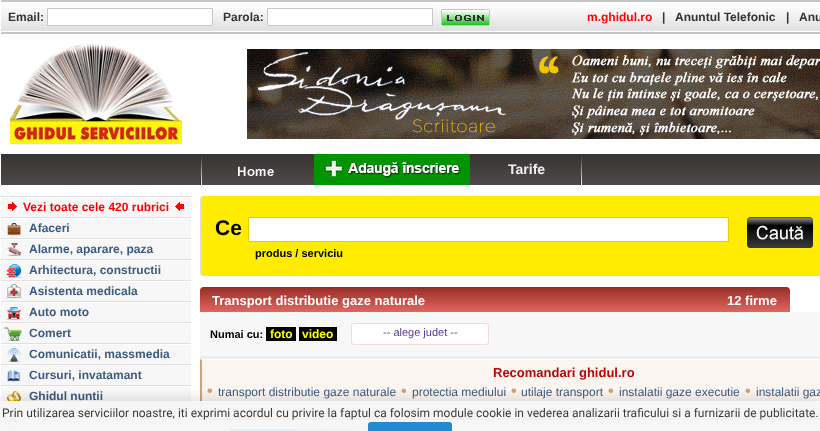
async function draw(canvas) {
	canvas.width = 820;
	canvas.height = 431;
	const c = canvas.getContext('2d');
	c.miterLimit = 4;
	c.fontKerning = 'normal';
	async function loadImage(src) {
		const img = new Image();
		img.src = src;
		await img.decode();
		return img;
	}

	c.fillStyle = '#fff';
	c.fillRect(0, 0, 820, 431);
	c.drawImage(await loadImage('img1.png'), 1, 0, 819, 34);
	c.font = 'bold 12px Liberation Sans';
	c.fillStyle = '#333';
	c.fillText('Email:', 8, 21);
	c.fillStyle = '#fff';
	c.beginPath();
	c.rect(47.5, 8.5, 165, 17);
	c.fill();
	c.strokeStyle = '#c6c6c6';
	c.stroke();
	c.fillStyle = '#333';
	c.fillText('Parola:', 223, 21);
	c.fillStyle = '#fff';
	c.beginPath();
	c.rect(267.5, 8.5, 165, 17);
	c.fill();
	c.stroke();
	c.drawImage(await loadImage('img2.png'), 441, 9, 49, 17);
	c.fillStyle = '#f00';
	c.fillText('m.ghidul.ro', 587, 21);
	c.fillStyle = '#333';
	for (const [text, x, y] of [
		['|', 662, 21],
		['Anuntul Telefonic', 675, 21],
		['|', 786, 21],
		['Anu', 799, 21],
	]) {
		c.fillText(text, x, y);
	}
	c.drawImage(await loadImage('img3.png'), 10, 44, 172, 100);
	c.drawImage(await loadImage('img4.png'), 247, 49, 573, 90);
	c.drawImage(await loadImage('img5.png'), 1, 154, 819, 31);
	c.drawImage(await loadImage('img6.png'), 200, 156, 2, 29);
	c.drawImage(await loadImage('img7.png'), 238, 166, 36, 10);
	c.drawImage(await loadImage('img8.png'), 314, 154, 156, 31);
	c.font = 'bold 14px Liberation Sans';
	c.fillStyle = '#efefef';
	c.fillText('Tarife', 508, 174);
	c.drawImage(await loadImage('img6.png'), 580, 156, 2, 29);
	for (const [x, y, w, h, color] of [
		[1, 198, 190, 233, '#f7f7f7'],
		[1, 196, 190, 1, '#e0e0e0'],
		[1, 217, 190, 1, '#e0e0e0'],
	]) {
		c.fillStyle = color;
		c.fillRect(x, y, w, h);
	}
	c.drawImage(await loadImage('img9.png'), 8, 202, 9, 9);
	c.font = 'bold 12px Liberation Sans';
	c.fillStyle = '#f00';
	c.fillText('Vezi toate cele 420 rubrici', 23, 211);
	c.drawImage(await loadImage('img10.png'), 175, 202, 9, 9);
	c.fillStyle = '#fff';
	c.fillRect(1, 218, 190, 1);
	c.fillStyle = '#e0e0e0';
	c.fillRect(1, 238, 190, 1);
	c.drawImage(await loadImage('img11.png'), 6, 223, 16, 13);
	c.fillStyle = '#3d5b81';
	c.fillText('Afaceri', 29, 232);
	c.fillStyle = '#fff';
	c.fillRect(1, 239, 190, 1);
	c.fillStyle = '#e0e0e0';
	c.fillRect(1, 259, 190, 1);
	c.drawImage(await loadImage('img12.png'), 7, 243, 15, 13);
	c.fillStyle = '#3d5b81';
	c.fillText('Alarme, aparare, paza', 29, 253);
	c.fillStyle = '#fff';
	c.fillRect(1, 260, 190, 1);
	c.fillStyle = '#e0e0e0';
	c.fillRect(1, 280, 190, 1);
	c.drawImage(await loadImage('img13.png'), 6, 264, 16, 14);
	c.fillStyle = '#3d5b81';
	c.fillText('Arhitectura, constructii', 29, 274);
	c.fillStyle = '#fff';
	c.fillRect(1, 281, 190, 1);
	c.fillStyle = '#e0e0e0';
	c.fillRect(1, 301, 190, 1);
	c.drawImage(await loadImage('img14.png'), 5, 284, 18, 15);
	c.fillStyle = '#3d5b81';
	c.fillText('Asistenta medicala', 29, 295);
	c.fillStyle = '#fff';
	c.fillRect(1, 302, 190, 1);
	c.fillStyle = '#e0e0e0';
	c.fillRect(1, 322, 190, 1);
	c.drawImage(await loadImage('img15.png'), 6, 307, 16, 13);
	c.fillStyle = '#3d5b81';
	c.fillText('Auto moto', 29, 316);
	c.fillStyle = '#fff';
	c.fillRect(1, 323, 190, 1);
	c.fillStyle = '#e0e0e0';
	c.fillRect(1, 343, 190, 1);
	c.drawImage(await loadImage('img16.png'), 4, 327, 18, 14);
	c.fillStyle = '#3d5b81';
	c.fillText('Comert', 29, 337);
	c.fillStyle = '#fff';
	c.fillRect(1, 344, 190, 1);
	c.fillStyle = '#e0e0e0';
	c.fillRect(1, 364, 190, 1);
	c.drawImage(await loadImage('img17.png'), 7, 348, 14, 14);
	c.fillStyle = '#3d5b81';
	c.fillText('Comunicatii, massmedia', 29, 358);
	c.fillStyle = '#fff';
	c.fillRect(1, 365, 190, 1);
	c.fillStyle = '#e0e0e0';
	c.fillRect(1, 385, 190, 1);
	c.drawImage(await loadImage('img18.png'), 6, 370, 15, 12);
	c.fillStyle = '#3d5b81';
	c.fillText('Cursuri, invatamant', 29, 379);
	c.fillStyle = '#fff';
	c.fillRect(1, 386, 190, 1);
	c.fillStyle = '#e0e0e0';
	c.fillRect(1, 406, 190, 1);
	c.drawImage(await loadImage('img19.png'), 7, 391, 14, 13);
	c.fillStyle = '#3d5b81';
	c.fillText('Ghidul nuntii', 29, 400);
	c.fillStyle = '#fff';
	c.fillRect(1, 407, 190, 1);
	c.fillStyle = '#e0e0e0';
	c.fillRect(1, 427, 190, 1);
	c.drawImage(await loadImage('img20.png'), 7, 411, 12, 14);
	c.fillStyle = '#fff';
	c.fillRect(1, 428, 190, 1);
	c.drawImage(await loadImage('img21.png'), 13, 430, 2, 1);
	c.drawImage(await loadImage('img22.png'), 200, 196, 3, 80);
	c.fillStyle = '#ffec01';
	c.fillRect(203, 196, 617, 80);
	c.font = 'bold 21px Liberation Sans';
	c.fillStyle = '#000';
	c.fillText('Ce', 215, 235);
	c.fillStyle = '#fff';
	c.beginPath();
	c.rect(248.5, 217.5, 480, 24);
	c.fill();
	c.strokeStyle = '#e9cc04';
	c.stroke();
	c.font = 'bold 11px Liberation Sans';
	c.fillStyle = '#000';
	c.fillText('produs / serviciu', 255, 257);
	c.drawImage(await loadImage('img23.png'), 747, 217, 66, 31);
	c.drawImage(await loadImage('img24.png'), 200, 287, 590, 25);
	c.font = 'bold 13px Liberation Sans';
	c.fillStyle = '#fff';
	c.fillText('Transport distributie gaze naturale', 212, 305);
	c.fillText('12 firme', 727, 305);
	c.fillStyle = '#f7f7f7';
	c.fillRect(200, 312, 620, 44);
	c.fillStyle = '#eee';
	c.fillRect(200, 356, 620, 3);
	c.font = 'bold 11px Liberation Sans';
	c.fillStyle = '#000';
	c.fillText('Numai cu:', 210, 338);
	c.fillRect(266, 327, 30, 14);
	c.font = 'bold 12px Liberation Sans';
	c.fillStyle = '#ff0';
	c.fillText('foto', 270, 338);
	c.fillStyle = '#000';
	c.fillRect(299, 327, 38, 14);
	c.fillStyle = '#ff0';
	c.fillText('video', 302, 338);
	c.fillStyle = '#fff';
	c.beginPath();
	c.roundRect(351.5, 323.5, 137, 21, 2.5);
	c.fill();
	c.strokeStyle = '#f3d9d8';
	c.stroke();
	c.font = '11px Liberation Sans';
	c.fillStyle = '#583795';
	c.fillText('-- alege judet --', 383, 336);
	c.fillStyle = '#faf5f1';
	c.fillRect(202, 360, 618, 58);
	c.fillStyle = '#d0a475';
	c.fillRect(200, 418, 620, 2);
	c.beginPath();
	c.moveTo(200, 420);
	c.lineTo(200, 359);
	c.lineTo(202, 360);
	c.lineTo(202, 418);
	c.closePath();
	c.fill();
	c.font = 'bold 13px Liberation Sans';
	c.fillStyle = '#b40806';
	c.fillText('Recomandari ghidul.ro', 493, 377);
	c.font = 'bold 16px Liberation Sans';
	c.fillStyle = '#d0a475';
	c.fillText('•', 207, 396);
	c.font = '12px Liberation Sans';
	c.fillStyle = '#3d5b81';
	c.fillText('transport distributie gaze naturale', 218, 396);
	c.font = 'bold 16px Liberation Sans';
	c.fillStyle = '#d0a475';
	c.fillText('•', 401, 396);
	c.font = '12px Liberation Sans';
	c.fillStyle = '#3d5b81';
	c.fillText('protectia mediului', 412, 396);
	c.font = 'bold 16px Liberation Sans';
	c.fillStyle = '#d0a475';
	c.fillText('•', 511, 396);
	c.font = '12px Liberation Sans';
	c.fillStyle = '#3d5b81';
	c.fillText('utilaje transport', 521, 396);
	c.font = 'bold 16px Liberation Sans';
	c.fillStyle = '#d0a475';
	c.fillText('•', 608, 396);
	c.font = '12px Liberation Sans';
	c.fillStyle = '#3d5b81';
	c.fillText('instalatii gaze executie', 619, 396);
	c.font = 'bold 16px Liberation Sans';
	c.fillStyle = '#d0a475';
	c.fillText('•', 745, 396);
	c.font = '12px Liberation Sans';
	c.fillStyle = '#3d5b81';
	c.fillText('instalatii gaz', 756, 396);
	c.drawImage(await loadImage('img25.png'), 230, 429, 134, 2);
	c.save();
	c.beginPath();
	c.rect(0, 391, 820, 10);
	c.clip();
	c.fillStyle = '#00000047';
	c.filter = 'blur(10px)';
	c.beginPath();
	c.rect(0, 406, 820, 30);
	c.fill();
	c.filter = 'none';
	c.restore();
	c.fillStyle = '#f5f5f5f2';
	c.fillRect(0, 401, 820, 30);
	c.font = '12px Roboto';
	c.fillStyle = '#3a3a3a';
	c.fillText('Prin utilizarea serviciilor noastre, iti exprimi acordul cu privire la faptul ca folosim module cookie in vederea analizarii traficului si a furnizarii de publicitate.', 2, 417);
	c.fillStyle = '#1983cdf2';
	c.beginPath();
	c.roundRect(368, 422, 84, 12, 3);
	c.fill();
}

draw(document.querySelector('canvas'));
